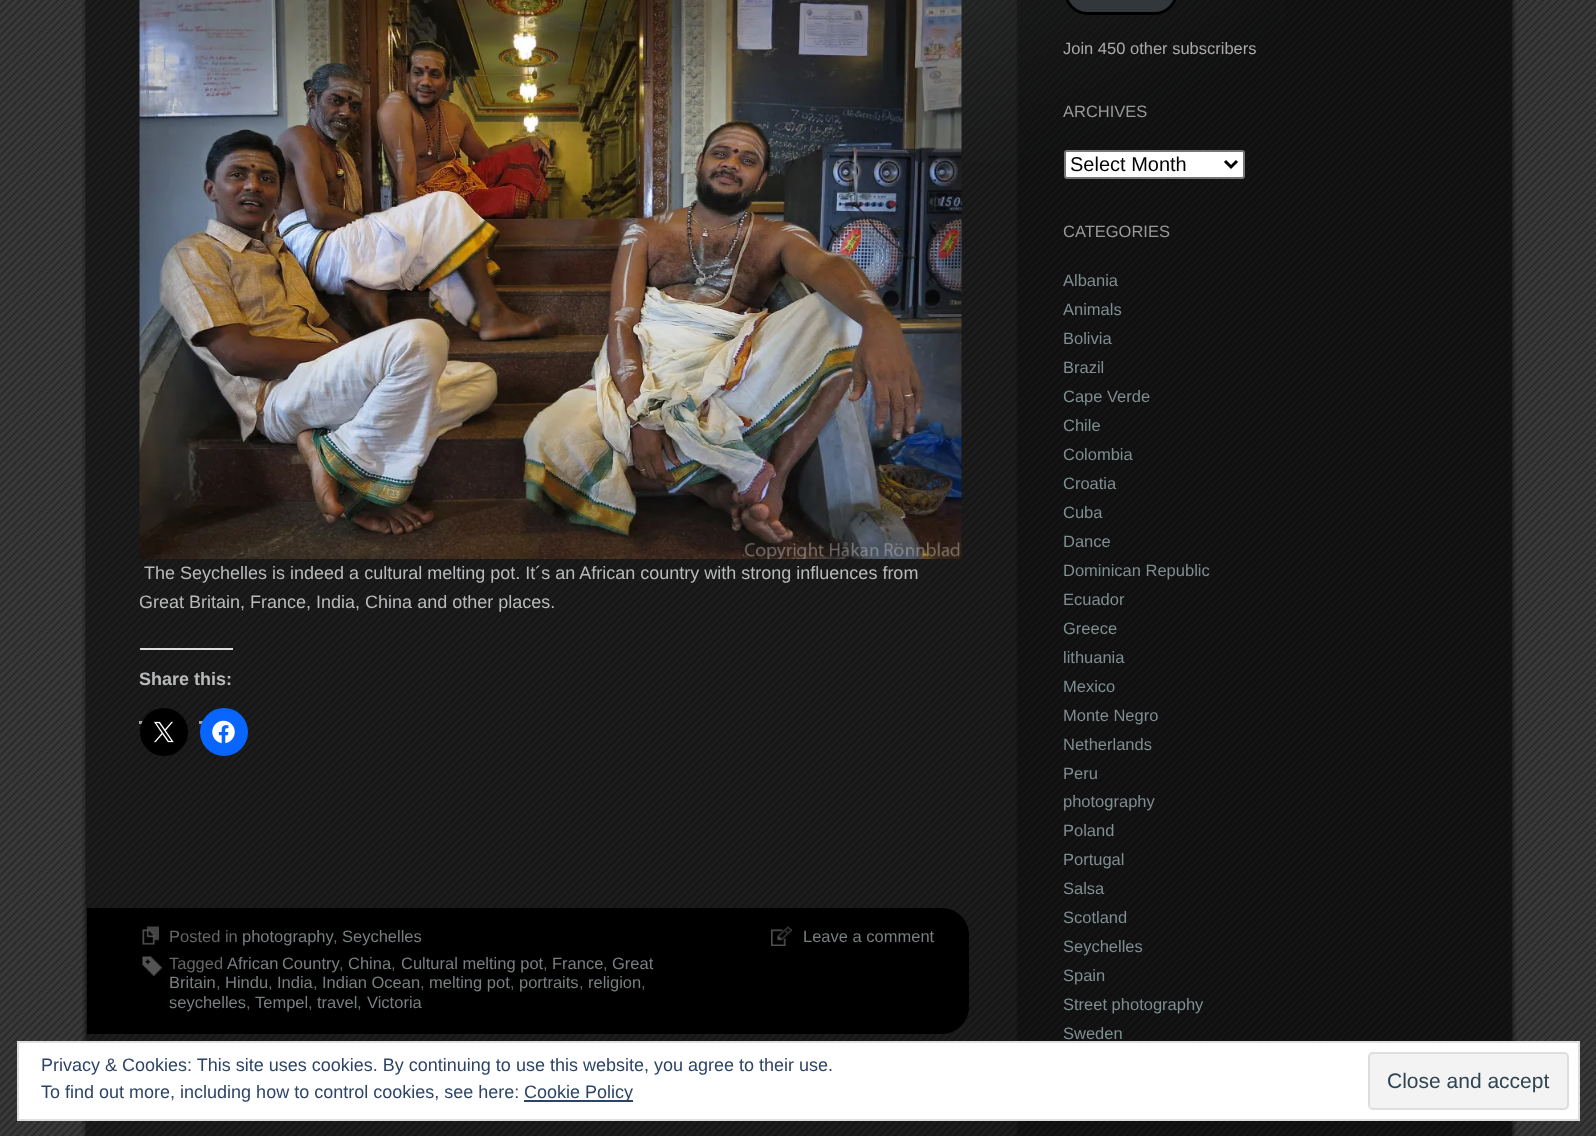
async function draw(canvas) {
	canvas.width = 1596;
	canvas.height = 1136;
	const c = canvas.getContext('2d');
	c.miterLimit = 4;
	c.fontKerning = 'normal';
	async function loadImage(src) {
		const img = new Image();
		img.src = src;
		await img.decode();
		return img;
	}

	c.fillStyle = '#fff';
	c.fillRect(0, 0, 1596, 1136);
	c.drawImage(await loadImage('img1.png'), 0, 0, 1596, 1136);
	c.drawImage(await loadImage('img2.png'), 961, 0, 325, 162);
	c.drawImage(await loadImage('img3.png'), 82, 0, 1434, 1136);
	c.drawImage(await loadImage('img4.png'), 139, 0, 823, 559);
	c.font = '18px Liberation Sans';
	c.fillStyle = '#b8babb';
	c.fillText('The Seychelles is indeed a cultural melting pot. It´s an African country with strong influences from', 144, 579);
	c.fillText('Great Britain, France, India, China and other places.', 139, 608);
	c.fillStyle = '#dcdcde';
	c.fillRect(140, 648, 93, 2);
	c.font = 'bold 18px Liberation Sans';
	c.fillStyle = '#b8babb';
	c.fillText('Share this:', 139, 685);
	c.fillStyle = '#a2a2a2';
	c.fillRect(139, 721, 5, 3);
	c.fillStyle = '#000';
	c.beginPath();
	c.arc(164, 732, 24, 0, 2 * Math.PI);
	c.fill();
	c.drawImage(await loadImage('img5.png'), 154, 721, 20, 22);
	c.fillStyle = '#a2a2a2';
	c.fillRect(199, 721, 5, 3);
	c.fillStyle = '#0866ff';
	c.beginPath();
	c.arc(224, 732, 24, 0, 2 * Math.PI);
	c.fill();
	c.drawImage(await loadImage('img6.png'), 212, 720, 23, 24);
	c.fillStyle = '#000';
	c.beginPath();
	c.roundRect(87, 908, 882, 126, [0, 27, 27, 0]);
	c.fill();
	c.drawImage(await loadImage('img7.png'), 142, 926, 17, 19);
	c.font = '16.5px Liberation Sans';
	c.fillStyle = '#666';
	c.fillText('Posted in', 169, 942);
	c.fillStyle = '#797f80';
	c.fillText('photography', 242, 942);
	c.fillStyle = '#666';
	c.fillText(',', 333, 942);
	c.fillStyle = '#797f80';
	c.fillText('Seychelles', 342, 942);
	c.drawImage(await loadImage('img8.png'), 771, 926, 21, 20);
	c.fillText('Leave a comment', 803, 942);
	c.drawImage(await loadImage('img9.png'), 142, 956, 20, 20);
	c.fillStyle = '#666';
	c.fillText('Tagged', 169, 969);
	c.wordSpacing = '-1px';
	c.fillStyle = '#797f80';
	c.fillText('African Country', 227, 969);
	c.wordSpacing = '0px';
	c.fillStyle = '#666';
	c.fillText(',', 339, 969);
	c.fillStyle = '#797f80';
	c.fillText('China', 348, 969);
	c.fillStyle = '#666';
	c.fillText(',', 391, 969);
	c.fillStyle = '#797f80';
	c.fillText('Cultural melting pot', 401, 969);
	c.fillStyle = '#666';
	c.fillText(',', 543, 969);
	c.fillStyle = '#797f80';
	c.fillText('France', 552, 969);
	c.fillStyle = '#666';
	c.fillText(',', 603, 969);
	c.fillStyle = '#797f80';
	c.fillText('Great', 612, 969);
	c.fillText('Britain', 169, 988);
	c.fillStyle = '#666';
	c.fillText(',', 216, 988);
	c.fillStyle = '#797f80';
	c.fillText('Hindu', 225, 988);
	c.fillStyle = '#666';
	c.fillText(',', 268, 988);
	c.fillStyle = '#797f80';
	c.fillText('India', 277, 988);
	c.fillStyle = '#666';
	c.fillText(',', 313, 988);
	c.fillStyle = '#797f80';
	c.fillText('Indian Ocean', 322, 988);
	c.fillStyle = '#666';
	c.fillText(',', 420, 988);
	c.fillStyle = '#797f80';
	c.fillText('melting pot', 429, 988);
	c.fillStyle = '#666';
	c.fillText(',', 510, 988);
	c.fillStyle = '#797f80';
	c.fillText('portraits', 519, 988);
	c.fillStyle = '#666';
	c.fillText(',', 579, 988);
	c.fillStyle = '#797f80';
	c.fillText('religion', 588, 988);
	c.fillStyle = '#666';
	c.fillText(',', 641, 988);
	c.fillStyle = '#797f80';
	c.fillText('seychelles', 169, 1008);
	c.fillStyle = '#666';
	c.fillText(',', 246, 1008);
	c.fillStyle = '#797f80';
	c.fillText('Tempel', 255, 1008);
	c.fillStyle = '#666';
	c.fillText(',', 308, 1008);
	c.fillStyle = '#797f80';
	c.fillText('travel', 317, 1008);
	c.fillStyle = '#666';
	c.fillText(',', 357, 1008);
	c.fillStyle = '#797f80';
	c.fillText('Victoria', 367, 1008);
	c.fillStyle = '#32373c';
	c.beginPath();
	c.roundRect(1065.5, -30.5, 111, 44, 27.5);
	c.fill();
	c.strokeStyle = '#000';
	c.lineWidth = 3;
	c.stroke();
	c.fillStyle = '#aaa';
	c.fillText('Join 450 other subscribers', 1063, 54);
	c.fillStyle = '#999';
	c.fillText('ARCHIVES', 1063, 117);
	c.fillStyle = '#fff';
	c.beginPath();
	c.roundRect(1065, 151, 179, 27, 2);
	c.fill();
	c.strokeStyle = '#767676';
	c.lineWidth = 2;
	c.stroke();
	c.beginPath();
	c.moveTo(1225, 161);
	c.lineTo(1231, 167);
	c.lineTo(1237, 161);
	c.strokeStyle = '#000';
	c.lineWidth = 3;
	c.stroke();
	c.font = '20px Liberation Sans';
	c.fillStyle = '#000';
	c.fillText('Select Month', 1070, 171);
	c.font = '16.5px Liberation Sans';
	c.fillStyle = '#999';
	c.fillText('CATEGORIES', 1063, 237);
	c.fillStyle = '#7f8e91';
	for (const [text, x, y] of [
		['Albania', 1063, 286],
		['Animals', 1063, 315],
		['Bolivia', 1063, 344],
		['Brazil', 1063, 373],
		['Cape Verde', 1063, 402],
		['Chile', 1063, 431],
		['Colombia', 1063, 460],
		['Croatia', 1063, 489],
		['Cuba', 1063, 518],
		['Dance', 1063, 547],
		['Dominican Republic', 1063, 576],
		['Ecuador', 1063, 605],
		['Greece', 1063, 634],
		['lithuania', 1063, 663],
		['Mexico', 1063, 692],
		['Monte Negro', 1063, 721],
		['Netherlands', 1063, 750],
		['Peru', 1063, 779],
		['photography', 1063, 807],
		['Poland', 1063, 836],
		['Portugal', 1063, 865],
		['Salsa', 1063, 894],
		['Scotland', 1063, 923],
		['Seychelles', 1063, 952],
		['Spain', 1063, 981],
		['Street photography', 1063, 1010],
		['Sweden', 1063, 1039],
	]) {
		c.fillText(text, x, y);
	}
	c.fillStyle = '#fff';
	c.beginPath();
	c.rect(18, 1042, 1561, 78);
	c.fill();
	c.strokeStyle = '#dedede';
	c.lineWidth = 2;
	c.stroke();
	c.font = '18px Liberation Sans';
	c.fillStyle = '#2e4467';
	c.fillText('Privacy & Cookies: This site uses cookies. By continuing to use this website, you agree to their use.', 41, 1071);
	c.fillText('To find out more, including how to control cookies, see here:', 41, 1098);
	c.fillRect(524, 1100, 109, 2);
	c.fillText('Cookie Policy', 524, 1098);
	c.fillStyle = '#f3f3f3';
	c.beginPath();
	c.roundRect(1369, 1053, 199, 56, 4);
	c.fill();
	c.stroke();
	c.font = '21px Liberation Sans';
	c.fillStyle = '#2e4453';
	c.fillText('Close and accept', 1387, 1088);
}

draw(document.querySelector('canvas'));
